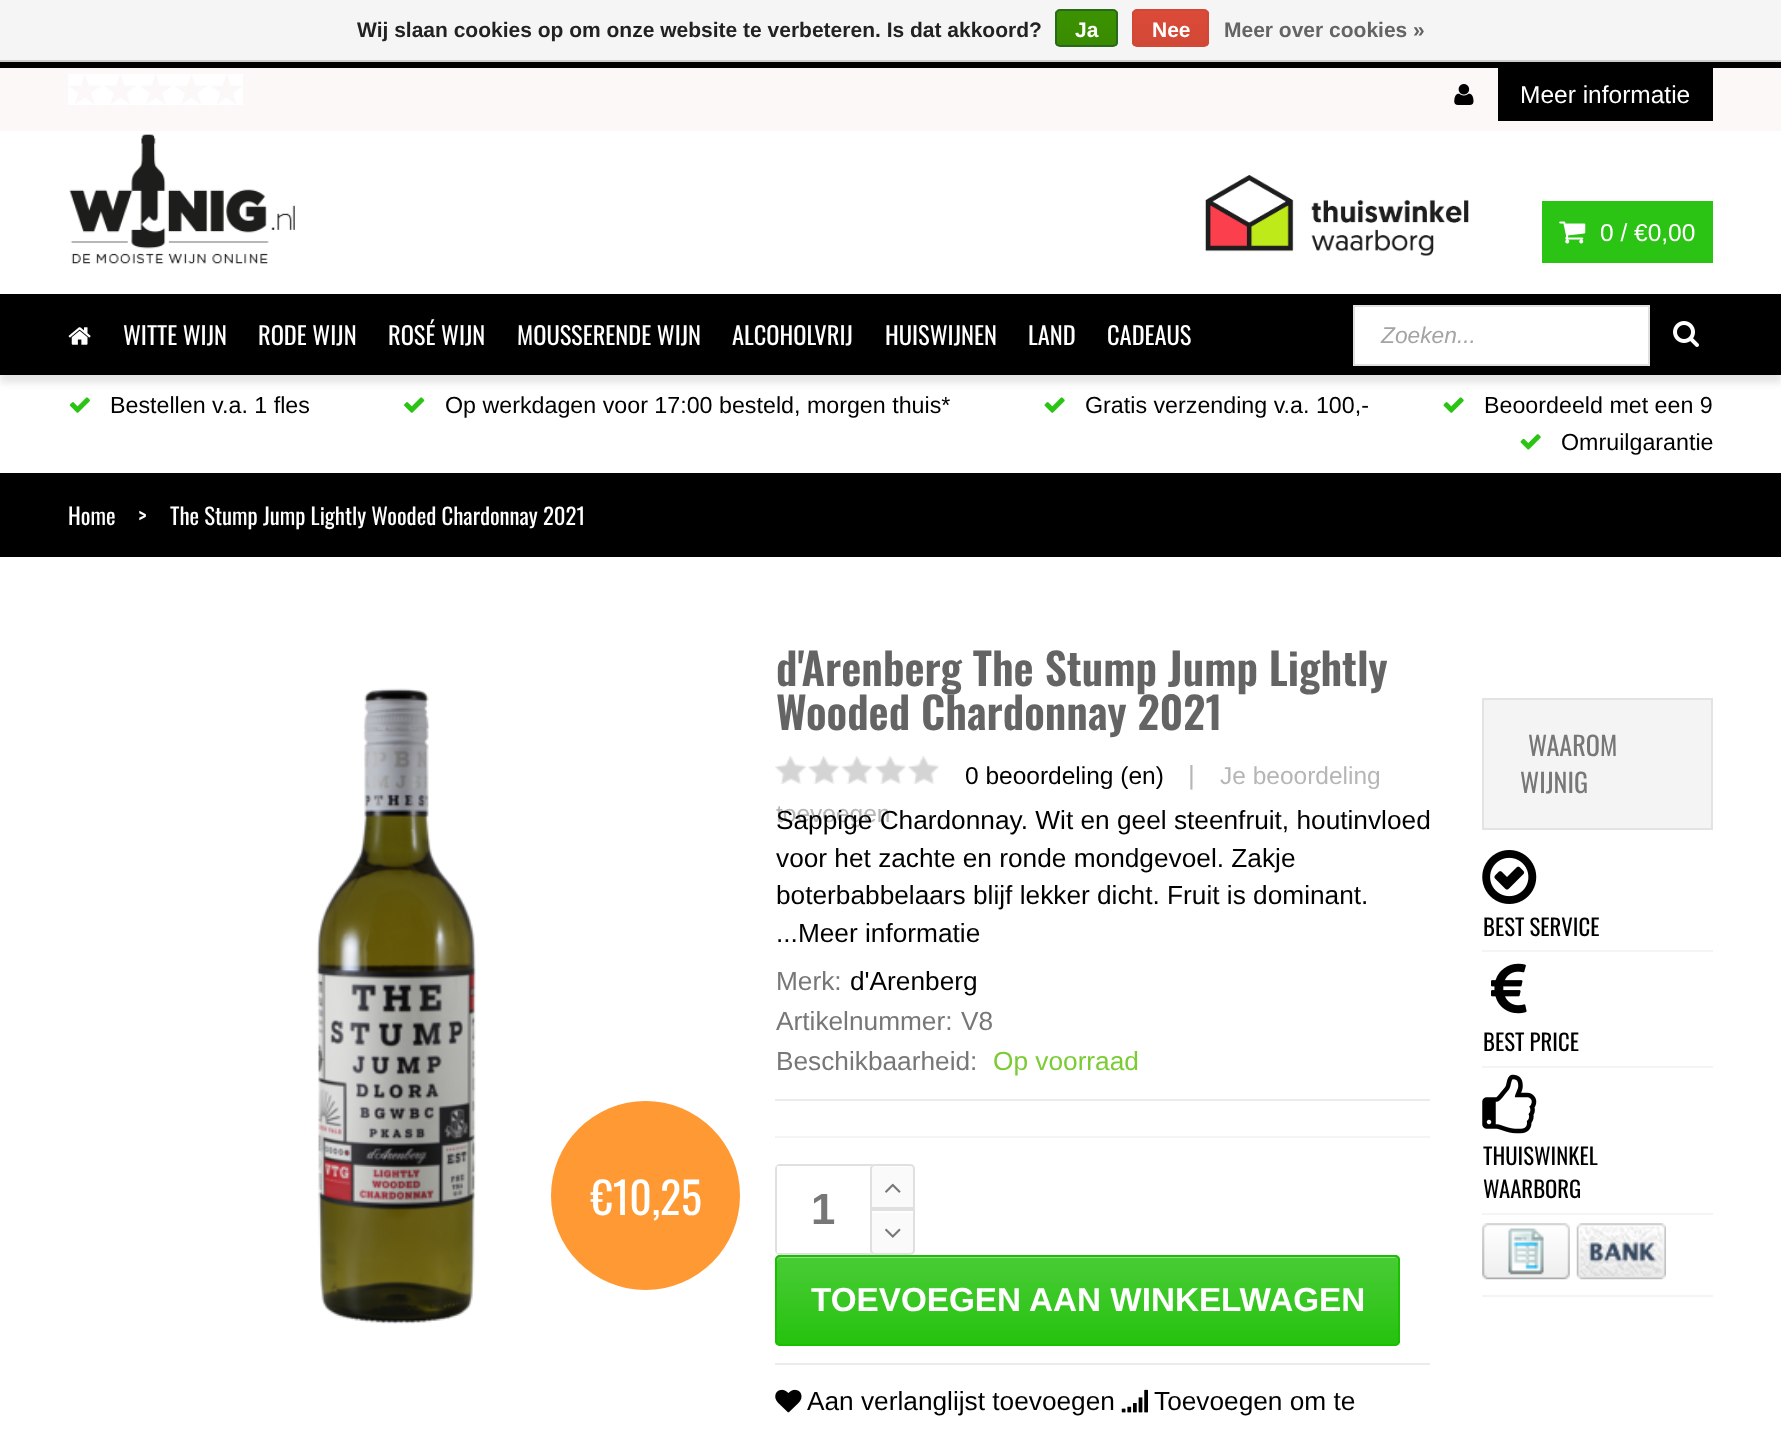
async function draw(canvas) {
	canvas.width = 1781;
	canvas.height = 1440;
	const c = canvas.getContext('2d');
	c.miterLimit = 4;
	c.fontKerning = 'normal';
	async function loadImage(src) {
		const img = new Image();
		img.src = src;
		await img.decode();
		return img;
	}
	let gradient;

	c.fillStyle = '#fff';
	c.fillRect(0, 0, 1781, 1440);
	c.fillStyle = '#f5f5f5';
	c.fillRect(0, 0, 1781, 60);
	c.fillStyle = '#ccc';
	c.fillRect(0, 60, 1781, 2);
	c.font = 'bold 21px Liberation Sans';
	c.fillStyle = '#222';
	c.fillText('Wij slaan cookies op om onze website te verbeteren. Is dat akkoord?', 357, 37);
	c.save();
	c.beginPath();
	c.roundRect(1055, 9, 63, 38, 5);
	c.clip();
	gradient = c.createLinearGradient(1087, 10, 1087, 46);
	gradient.addColorStop(0, '#3c9300');
	gradient.addColorStop(1, '#398a00');
	c.fillStyle = gradient;
	c.fillRect(1055, 11, 63, 35);
	c.restore();
	c.beginPath();
	c.roundRect(1056, 10, 61, 36, 4);
	c.strokeStyle = '#29691d';
	c.lineWidth = 2;
	c.stroke();
	c.fillStyle = '#fff';
	c.fillText('Ja', 1075, 37);
	c.save();
	c.beginPath();
	c.roundRect(1132, 9, 77, 38, 5);
	c.clip();
	gradient = c.createLinearGradient(1171, 10, 1171, 46);
	gradient.addColorStop(0, '#dc4a38');
	gradient.addColorStop(1, '#d14836');
	c.fillStyle = gradient;
	c.fillRect(1132, 11, 77, 35);
	c.restore();
	c.beginPath();
	c.roundRect(1133, 10, 75, 36, 4);
	c.strokeStyle = '#d14836';
	c.stroke();
	c.fillText('Nee', 1152, 37);
	c.fillStyle = '#646464';
	c.fillText('Meer over cookies »', 1224, 37);
	c.fillStyle = '#fcf8f8';
	c.fillRect(0, 68, 1781, 63);
	c.fillStyle = '#000';
	c.fillRect(0, 62, 1781, 6);
	c.drawImage(await loadImage('img1.png'), 68, 74, 175, 31);
	c.drawImage(await loadImage('img2.png'), 1454, 84, 20, 21);
	c.fillRect(1498, 68, 215, 53);
	c.font = '24.5px Liberation Sans';
	c.fillStyle = '#fff';
	c.fillText('Meer informatie', 1520, 103);
	c.drawImage(await loadImage('img3.png'), 69, 134, 226, 130);
	c.drawImage(await loadImage('img4.png'), 1205, 175, 264, 81);
	c.fillStyle = '#2bc414';
	c.fillRect(1542, 201, 171, 62);
	c.drawImage(await loadImage('img5.png'), 1559, 221, 27, 23);
	c.fillStyle = '#fff';
	c.fillText('0 / €0,00', 1600, 241);
	c.fillStyle = '#0000001a';
	c.filter = 'blur(3.5px)';
	c.beginPath();
	c.rect(0, 303, 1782, 80);
	c.fill();
	c.filter = 'none';
	c.fillStyle = '#000';
	c.fillRect(0, 294, 1781, 81);
	c.drawImage(await loadImage('img6.png'), 68, 327, 23, 18);
	c.font = '24.5px Oswald';
	c.fillStyle = '#fff';
	for (const [text, x, y] of [
		['WITTE WIJN', 123, 345],
		['RODE WIJN', 258, 345],
		['ROSÉ WIJN', 388, 345],
		['MOUSSERENDE WIJN', 517, 345],
		['ALCOHOLVRIJ', 732, 345],
		['HUISWIJNEN', 885, 345],
		['LAND', 1028, 345],
		['CADEAUS', 1107, 345],
	]) {
		c.fillText(text, x, y);
	}
	c.beginPath();
	c.rect(1354, 306, 295, 59);
	c.fill();
	c.strokeStyle = '#e0e0e0';
	c.stroke();
	c.font = 'italic 22.75px Liberation Sans';
	c.fillStyle = '#a4a4a4';
	c.fillText('Zoeken...', 1381, 343);
	c.drawImage(await loadImage('img7.png'), 1673, 321, 26, 26);
	c.drawImage(await loadImage('img8.png'), 69, 397, 21, 16);
	c.font = '23.25px Liberation Sans';
	c.fillStyle = '#000';
	c.fillText('Bestellen v.a. 1 fles', 110, 413);
	c.drawImage(await loadImage('img9.png'), 404, 397, 21, 16);
	c.fillText('Op werkdagen voor 17:00 besteld, morgen thuis*', 445, 413);
	c.drawImage(await loadImage('img10.png'), 1044, 397, 21, 16);
	c.fillText('Gratis verzending v.a. 100,-', 1085, 413);
	c.drawImage(await loadImage('img10.png'), 1443, 397, 21, 16);
	c.fillText('Beoordeeld met een 9', 1484, 413);
	c.drawImage(await loadImage('img11.png'), 1520, 434, 21, 16);
	c.fillText('Omruilgarantie', 1561, 450);
	c.fillRect(0, 473, 1781, 84);
	c.font = '22.75px Oswald';
	c.fillStyle = '#fff';
	for (const [text, x, y] of [
		['Home', 68, 525],
		['>', 138, 525],
		['The Stump Jump Lightly Wooded Chardonnay 2021', 170, 525],
	]) {
		c.fillText(text, x, y);
	}
	c.drawImage(await loadImage('img12.png'), 316, 688, 160, 636);
	c.fillStyle = '#f93';
	c.beginPath();
	c.arc(645.5, 1195.5, 94.5, 0, 2 * Math.PI);
	c.fill();
	c.font = '43.75px Oswald';
	c.fillStyle = '#fff';
	c.fillText('€10,25', 591, 1215);
	c.font = '600 43.75px Oswald';
	c.fillStyle = '#646464';
	c.fillText('d\'Arenberg The Stump Jump Lightly', 776, 686);
	c.fillText('Wooded Chardonnay 2021', 776, 730);
	c.drawImage(await loadImage('img13.png'), 775, 756, 164, 28);
	c.font = '24.5px Liberation Sans';
	c.fillStyle = '#000';
	c.fillText('0 beoordeling (en)', 965, 784);
	c.font = '26.25px Liberation Sans';
	c.fillStyle = '#b6b6b6';
	c.fillText('|', 1188, 784);
	c.font = '24.5px Liberation Sans';
	c.fillText('Je beoordeling', 1220, 784);
	c.fillText('toevoegen', 776, 822);
	c.font = '26.25px Liberation Sans';
	c.fillStyle = '#000';
	for (const [text, x, y] of [
		['Sappige Chardonnay. Wit en geel steenfruit, houtinvloed', 776, 829],
		['voor het zachte en ronde mondgevoel. Zakje', 776, 867],
		['boterbabbelaars blijf lekker dicht. Fruit is dominant.', 776, 904],
		['...Meer informatie', 776, 942],
	]) {
		c.fillText(text, x, y);
	}
	c.fillStyle = '#777';
	c.fillText('Merk:', 776, 990);
	c.fillStyle = '#000';
	c.fillText('d\'Arenberg', 850, 990);
	c.fillStyle = '#777';
	for (const [text, x, y] of [
		['Artikelnummer:', 776, 1030],
		['V8', 961, 1030],
		['Beschikbaarheid:', 776, 1070],
	]) {
		c.fillText(text, x, y);
	}
	c.fillStyle = '#7bcb34';
	c.fillText('Op voorraad', 993, 1070);
	c.fillStyle = '#ebebeb';
	c.fillRect(775, 1099, 655, 2);
	c.fillStyle = '#f4f4f4';
	c.fillRect(775, 1136, 655, 2);
	c.beginPath();
	c.roundRect(776, 1165, 138, 89, 4);
	c.stroke();
	c.fillStyle = '#fff';
	c.fillRect(777, 1166, 3, 87);
	c.font = 'bold 43.75px Liberation Sans';
	c.fillStyle = '#777';
	c.fillText('1', 811, 1224);
	c.fillStyle = '#fafafa';
	c.beginPath();
	c.roundRect(870, 1164, 45, 45, [5, 5, 0, 0]);
	c.fill();
	c.fillStyle = '#fefefe';
	c.beginPath();
	c.moveTo(875, 1167);
	c.lineTo(910, 1167);
	c.bezierCurveTo(912, 1167, 914, 1169, 914, 1171);
	c.bezierCurveTo(914, 1165, 909, 1166, 904, 1166);
	c.lineTo(882, 1166);
	c.bezierCurveTo(877, 1166, 872, 1165, 872, 1171);
	c.bezierCurveTo(872, 1169, 873, 1167, 875, 1167);
	c.closePath();
	c.fill();
	c.beginPath();
	c.roundRect(871, 1165, 43, 43, [4, 4, 0, 0]);
	c.stroke();
	c.drawImage(await loadImage('img14.png'), 885, 1183, 16, 10);
	c.fillStyle = '#fafafa';
	c.beginPath();
	c.roundRect(870, 1209, 45, 46, [0, 0, 5, 5]);
	c.fill();
	c.fillStyle = '#fefefe';
	c.fillRect(872, 1211, 42, 2);
	c.beginPath();
	c.roundRect(871, 1210, 43, 44, [0, 0, 4, 4]);
	c.stroke();
	c.drawImage(await loadImage('img15.png'), 885, 1228, 16, 10);
	c.fillStyle = '#19bf00';
	c.beginPath();
	c.roundRect(775, 1255, 625, 91, 5);
	c.fill();
	c.drawImage(await loadImage('img16.png'), 775, 1255, 625, 91);
	c.fillStyle = '#ffffff66';
	c.beginPath();
	c.moveTo(780, 1258);
	c.lineTo(1395, 1258);
	c.bezierCurveTo(1397, 1258, 1398, 1260, 1398, 1262);
	c.lineTo(1398, 1261);
	c.bezierCurveTo(1398, 1259, 1396, 1257, 1394, 1257);
	c.lineTo(781, 1257);
	c.bezierCurveTo(779, 1257, 777, 1259, 777, 1261);
	c.lineTo(777, 1262);
	c.bezierCurveTo(777, 1260, 779, 1258, 780, 1258);
	c.closePath();
	c.fill();
	c.beginPath();
	c.roundRect(776, 1256, 623, 89, 4);
	c.strokeStyle = '#19bf00';
	c.stroke();
	c.font = 'bold 33.25px Liberation Sans';
	c.fillStyle = '#fff';
	c.fillText('TOEVOEGEN AAN WINKELWAGEN', 811, 1311);
	c.fillStyle = '#ebebeb';
	c.fillRect(775, 1363, 655, 2);
	c.drawImage(await loadImage('img17.png'), 775, 1389, 27, 24);
	c.font = '26.25px Liberation Sans';
	c.fillStyle = '#000';
	c.fillText('Aan verlanglijst toevoegen', 807, 1410);
	c.drawImage(await loadImage('img18.png'), 1121, 1389, 27, 24);
	c.fillText('Toevoegen om te', 1154, 1410);
	c.fillStyle = '#f4f4f4';
	c.beginPath();
	c.rect(1483, 699, 229, 130);
	c.fill();
	c.strokeStyle = '#e4e2e2';
	c.stroke();
	c.font = '26.25px Oswald';
	c.fillStyle = '#777';
	c.fillText('WAAROM', 1528, 756);
	c.fillText('WIJNIG', 1520, 793);
	c.fillStyle = '#f4f4f4';
	c.fillRect(1482, 950, 231, 2);
	c.drawImage(await loadImage('img19.png'), 1482, 850, 55, 54);
	c.font = '22.75px Oswald';
	c.fillStyle = '#000';
	c.fillText('BEST SERVICE', 1483, 936);
	c.fillStyle = '#f4f4f4';
	c.fillRect(1482, 1066, 231, 2);
	c.drawImage(await loadImage('img20.png'), 1491, 963, 36, 51);
	c.fillStyle = '#000';
	c.fillText('BEST PRICE', 1483, 1051);
	c.fillStyle = '#f4f4f4';
	c.fillRect(1482, 1213, 231, 2);
	c.drawImage(await loadImage('img21.png'), 1482, 1074, 55, 60);
	c.fillStyle = '#000';
	c.fillText('THUISWINKEL', 1483, 1165);
	c.fillText('WAARBORG', 1483, 1198);
	c.fillStyle = '#f4f4f4';
	c.fillRect(1482, 1295, 231, 2);
	c.drawImage(await loadImage('img22.png'), 1482, 1223, 88, 57);
	c.drawImage(await loadImage('img23.png'), 1576, 1223, 90, 57);
}

draw(document.querySelector('canvas'));
